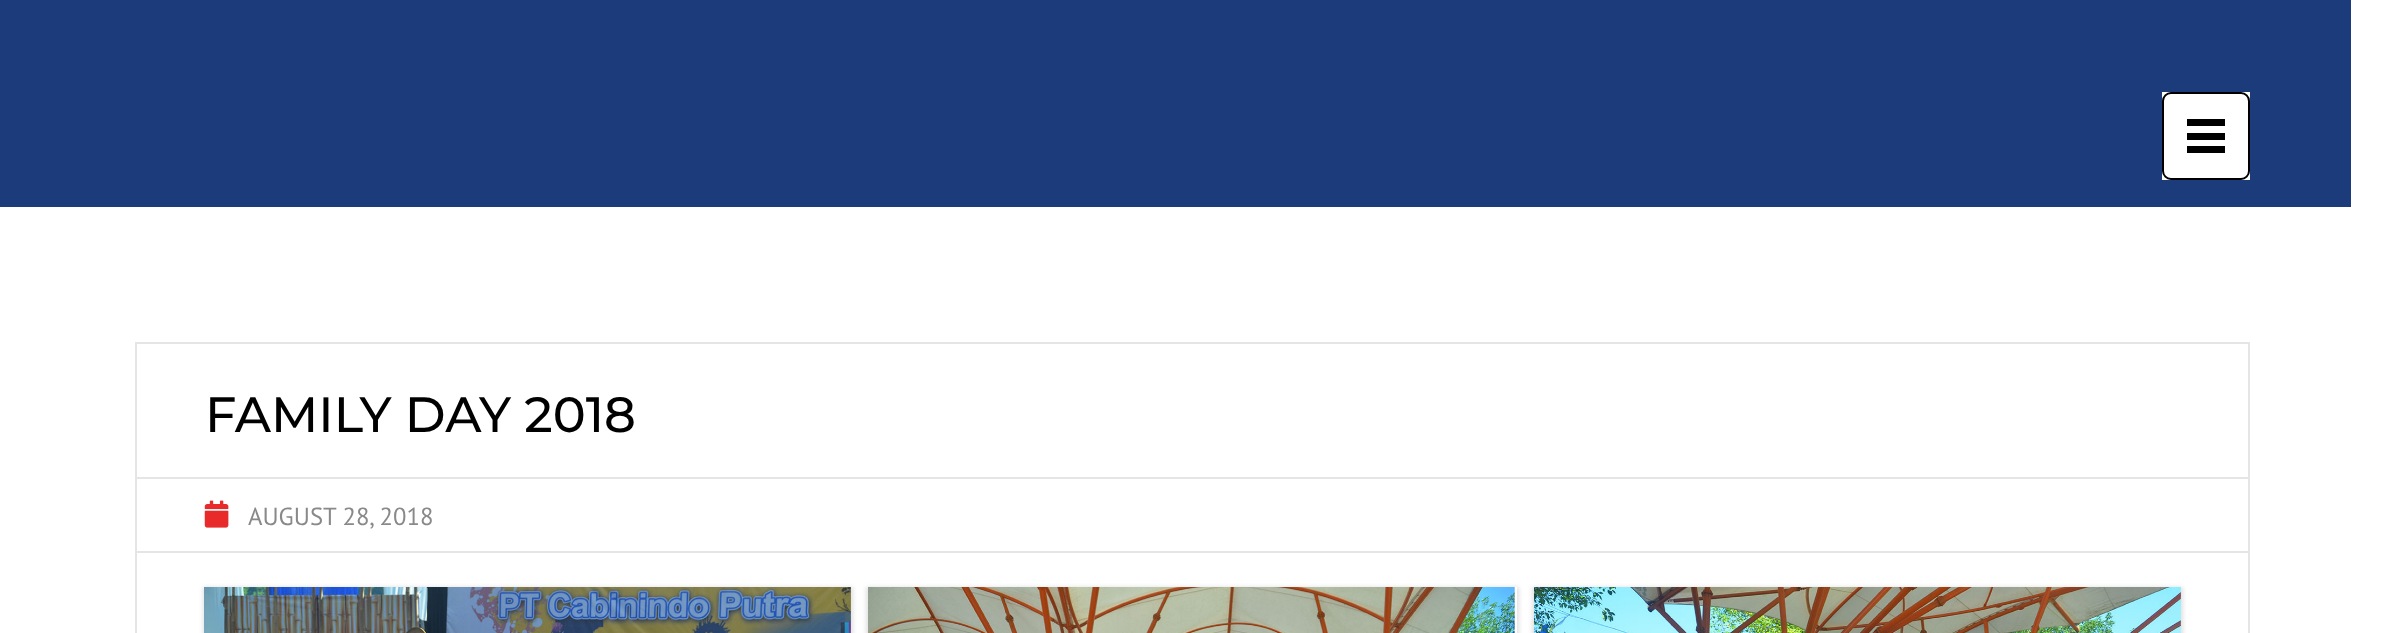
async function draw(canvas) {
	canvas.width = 2383;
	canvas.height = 633;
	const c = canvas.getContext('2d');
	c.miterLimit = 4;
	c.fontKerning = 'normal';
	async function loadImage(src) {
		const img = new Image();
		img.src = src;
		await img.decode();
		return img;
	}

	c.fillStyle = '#fff';
	c.fillRect(0, 0, 2383, 633);
	c.fillStyle = '#1c3b7b';
	c.fillRect(0, 0, 2351, 207);
	c.fillStyle = '#fff';
	c.fillRect(2162, 92, 88, 88);
	c.beginPath();
	c.roundRect(2163, 93, 86, 86, 8);
	c.strokeStyle = '#000';
	c.lineWidth = 2;
	c.stroke();
	for (const [x, y, w, h, color] of [
		[2187, 119, 38, 7, '#000'],
		[2187, 133, 38, 7, '#000'],
		[2187, 146, 38, 7, '#000'],
	]) {
		c.fillStyle = color;
		c.fillRect(x, y, w, h);
	}
	c.strokeStyle = '#e5e5e5';
	c.strokeRect(136, 343, 2113, 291);
	c.font = '500 49.5px Montserrat';
	c.fillText('FAMILY DAY 2018', 205, 432);
	c.fillStyle = '#e5e5e5';
	c.fillRect(137, 477, 2111, 2);
	c.fillRect(137, 551, 2111, 2);
	c.drawImage(await loadImage('img1.png'), 204, 500, 25, 28);
	c.font = '24.75px PT Sans';
	c.fillStyle = '#898989';
	c.fillText('AUGUST 28, 2018', 248, 525);
	c.fillStyle = '#0000001f';
	c.filter = 'blur(2px)';
	c.beginPath();
	c.rect(203, 587, 650, 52);
	c.fill();
	c.filter = 'none';
	c.drawImage(await loadImage('img2.png'), 204, 587, 647, 46);
	c.save();
	c.beginPath();
	c.moveTo(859, 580);
	c.lineTo(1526, 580);
	c.lineTo(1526, 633);
	c.lineTo(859, 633);
	c.closePath();
	c.moveTo(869, 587);
	c.lineTo(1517, 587);
	c.lineTo(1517, 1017);
	c.lineTo(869, 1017);
	c.closePath();
	c.clip('evenodd');
	c.filter = 'blur(2px)';
	c.beginPath();
	c.rect(866, 587, 653, 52);
	c.fill();
	c.filter = 'none';
	c.restore();
	c.drawImage(await loadImage('img3.png'), 868, 587, 647, 46);
	c.filter = 'blur(2px)';
	c.beginPath();
	c.rect(1532, 587, 651, 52);
	c.fill();
	c.filter = 'none';
	c.drawImage(await loadImage('img4.png'), 1534, 587, 647, 46);
}

draw(document.querySelector('canvas'));
